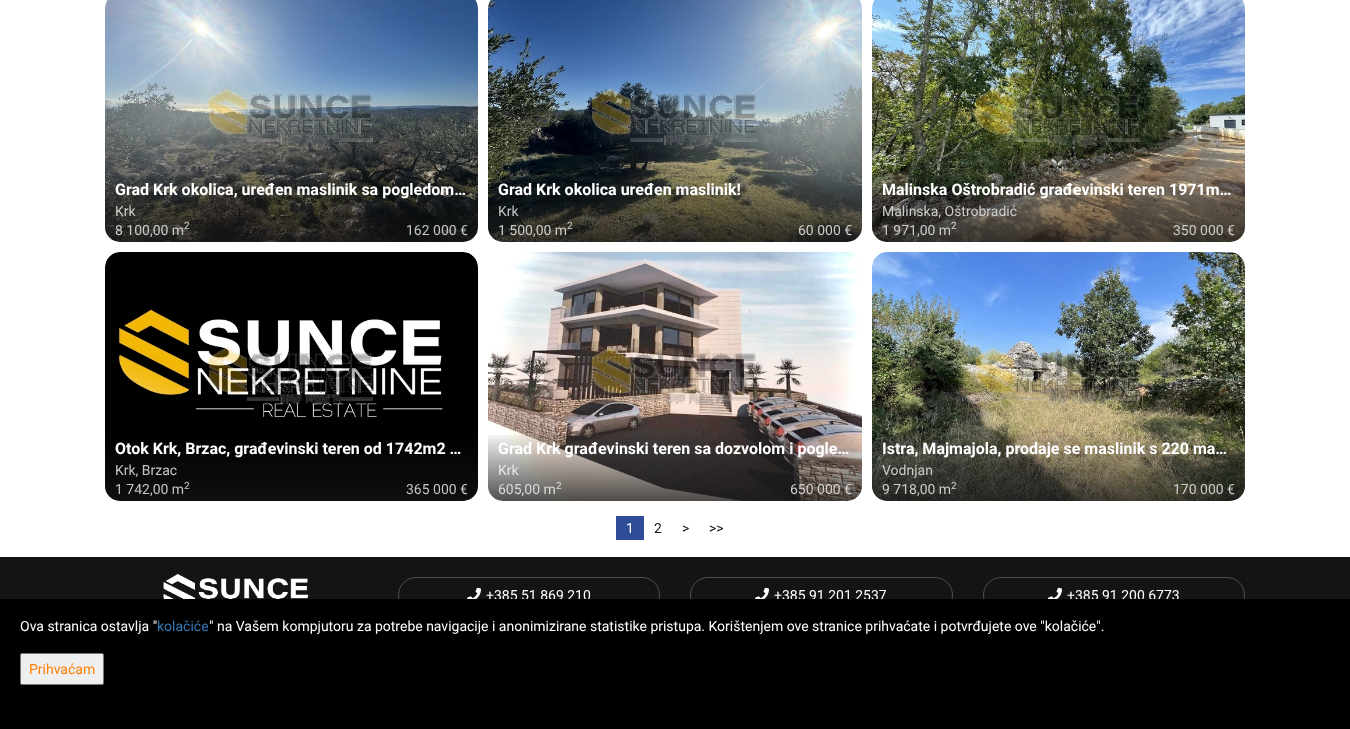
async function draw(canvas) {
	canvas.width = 1350;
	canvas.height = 729;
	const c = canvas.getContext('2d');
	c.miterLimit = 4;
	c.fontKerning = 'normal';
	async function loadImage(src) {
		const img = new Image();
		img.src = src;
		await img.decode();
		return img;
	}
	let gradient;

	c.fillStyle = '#fff';
	c.fillRect(0, 0, 1350, 729);
	c.drawImage(await loadImage('img1.png'), 105, 0, 373, 242);
	gradient = c.createLinearGradient(292, 242, 292, 176);
	gradient.addColorStop(0, '#141414bf');
	gradient.addColorStop(1, '#1414140d');
	c.fillStyle = gradient;
	c.beginPath();
	c.roundRect(105, 176, 373, 66, [0, 0, 15, 15]);
	c.fill();
	c.font = 'bold 16px Roboto';
	c.fillStyle = '#fff';
	c.fillText('Grad Krk okolica, uređen maslinik sa pogledom…', 115, 195);
	c.font = '14px Roboto';
	c.fillStyle = '#cccccb';
	c.fillText('Krk', 115, 216);
	c.fillText('8 100,00 m', 115, 235);
	c.font = '10px Roboto';
	c.fillText('2', 184, 229);
	c.font = '14px Roboto';
	c.fillStyle = '#c4c5c5';
	c.fillText('162 000 €', 406, 235);
	c.drawImage(await loadImage('img2.png'), 488, 0, 374, 242);
	gradient = c.createLinearGradient(675, 242, 675, 176);
	gradient.addColorStop(0, '#141414bf');
	gradient.addColorStop(1, '#1414140d');
	c.fillStyle = gradient;
	c.beginPath();
	c.roundRect(488, 176, 374, 66, [0, 0, 15, 15]);
	c.fill();
	c.font = 'bold 16px Roboto';
	c.fillStyle = '#fff';
	c.fillText('Grad Krk okolica uređen maslinik!', 498, 195);
	c.font = '14px Roboto';
	c.fillStyle = '#c4c5c5';
	c.fillText('Krk', 498, 216);
	c.fillStyle = '#cccccb';
	c.fillText('1 500,00 m', 498, 235);
	c.font = '10px Roboto';
	c.fillText('2', 567, 229);
	c.font = '14px Roboto';
	c.fillText('60 000 €', 798, 235);
	c.drawImage(await loadImage('img3.png'), 872, 0, 373, 242);
	gradient = c.createLinearGradient(1059, 242, 1059, 176);
	gradient.addColorStop(0, '#141414bf');
	gradient.addColorStop(1, '#1414140d');
	c.fillStyle = gradient;
	c.beginPath();
	c.roundRect(872, 176, 373, 66, [0, 0, 15, 15]);
	c.fill();
	c.font = 'bold 16px Roboto';
	c.fillStyle = '#fff';
	c.fillText('Malinska Oštrobradić građevinski teren 1971m…', 882, 195);
	c.font = '14px Roboto';
	c.fillStyle = '#cccccb';
	c.fillText('Malinska, Oštrobradić', 882, 216);
	c.fillText('1 971,00 m', 882, 235);
	c.font = '10px Roboto';
	c.fillStyle = '#d2d1d0';
	c.fillText('2', 951, 229);
	c.font = '14px Roboto';
	c.fillStyle = '#cccccb';
	c.fillText('350 000 €', 1173, 235);
	c.drawImage(await loadImage('img4.png'), 105, 252, 373, 249);
	gradient = c.createLinearGradient(292, 501, 292, 435);
	gradient.addColorStop(0, '#141414bf');
	gradient.addColorStop(1, '#1414140d');
	c.fillStyle = gradient;
	c.beginPath();
	c.roundRect(105, 435, 373, 66, [0, 0, 15, 15]);
	c.fill();
	c.font = 'bold 16px Roboto';
	c.fillStyle = '#fff';
	c.fillText('Otok Krk, Brzac, građevinski teren od 1742m2 …', 115, 454);
	c.font = '14px Roboto';
	c.fillStyle = '#c4c5c5';
	c.fillText('Krk, Brzac', 115, 475);
	c.fillText('1 742,00 m', 115, 494);
	c.font = '10px Roboto';
	c.fillText('2', 184, 489);
	c.font = '14px Roboto';
	c.fillText('365 000 €', 406, 494);
	c.drawImage(await loadImage('img5.png'), 488, 252, 374, 249);
	gradient = c.createLinearGradient(675, 501, 675, 435);
	gradient.addColorStop(0, '#141414bf');
	gradient.addColorStop(1, '#1414140d');
	c.fillStyle = gradient;
	c.beginPath();
	c.roundRect(488, 435, 374, 66, [0, 0, 15, 15]);
	c.fill();
	c.font = 'bold 16px Roboto';
	c.fillStyle = '#fff';
	c.fillText('Grad Krk građevinski teren sa dozvolom i pogle…', 498, 454);
	c.font = '14px Roboto';
	c.fillStyle = '#e6e6e6';
	c.fillText('Krk', 498, 475);
	c.fillStyle = '#dadada';
	c.fillText('605,00 m', 498, 494);
	c.font = '10px Roboto';
	c.fillText('2', 556, 489);
	c.font = '14px Roboto';
	c.fillStyle = '#d2d1d0';
	c.fillText('650 000 €', 790, 494);
	c.drawImage(await loadImage('img6.png'), 872, 252, 373, 249);
	gradient = c.createLinearGradient(1059, 501, 1059, 435);
	gradient.addColorStop(0, '#141414bf');
	gradient.addColorStop(1, '#1414140d');
	c.fillStyle = gradient;
	c.beginPath();
	c.roundRect(872, 435, 373, 66, [0, 0, 15, 15]);
	c.fill();
	c.font = 'bold 16px Roboto';
	c.fillStyle = '#fff';
	c.fillText('Istra, Majmajola, prodaje se maslinik s 220 ma…', 882, 454);
	c.font = '14px Roboto';
	c.fillStyle = '#cccccb';
	c.fillText('Vodnjan', 882, 475);
	c.fillText('9 718,00 m', 882, 494);
	c.font = '10px Roboto';
	c.fillText('2', 951, 489);
	c.font = '14px Roboto';
	c.fillText('170 000 €', 1173, 494);
	c.fillStyle = '#2f4c98';
	c.fillRect(616, 516, 28, 24);
	c.fillStyle = '#fff';
	c.fillText('1', 626, 533);
	c.fillStyle = '#141414';
	for (const [text, x, y] of [
		['2', 654, 533],
		['>', 682, 533],
		['>>', 709, 533],
	]) {
		c.fillText(text, x, y);
	}
	c.fillRect(0, 557, 1350, 42);
	c.drawImage(await loadImage('img7.png'), 163, 574, 146, 25);
	c.beginPath();
	c.roundRect(398.5, 577.5, 261, 35, 17.5);
	c.strokeStyle = '#4f4f4f';
	c.stroke();
	c.drawImage(await loadImage('img8.png'), 467, 587, 14, 12);
	c.fillStyle = '#fff';
	c.fillText('+385 51 869 210', 486, 600);
	c.beginPath();
	c.roundRect(690.5, 577.5, 262, 35, 17.5);
	c.stroke();
	c.drawImage(await loadImage('img8.png'), 755, 587, 14, 12);
	c.fillText('+385 91 201 2537', 774, 600);
	c.beginPath();
	c.roundRect(983.5, 577.5, 261, 35, 17.5);
	c.stroke();
	c.drawImage(await loadImage('img8.png'), 1048, 587, 14, 12);
	c.fillText('+385 91 200 6773', 1067, 600);
	c.fillStyle = '#000';
	c.fillRect(0, 599, 1350, 130);
	c.fillStyle = '#fff';
	c.fillText('Ova stranica ostavlja "', 20, 631);
	c.fillStyle = '#337ab7';
	c.fillText('kolačiće', 157, 631);
	c.fillStyle = '#fff';
	c.fillText('" na Vašem kompjutoru za potrebe navigacije i anonimizirane statistike pristupa. Korištenjem ove stranice prihvaćate i potvrđujete ove "kolačiće".', 209, 631);
	c.fillStyle = '#efefef';
	c.beginPath();
	c.roundRect(20.5, 653.5, 83, 31, 1.5);
	c.fill();
	c.strokeStyle = '#767676';
	c.stroke();
	c.fillStyle = '#ff7e00';
	c.fillText('Prihvaćam', 29, 674);
}

draw(document.querySelector('canvas'));
